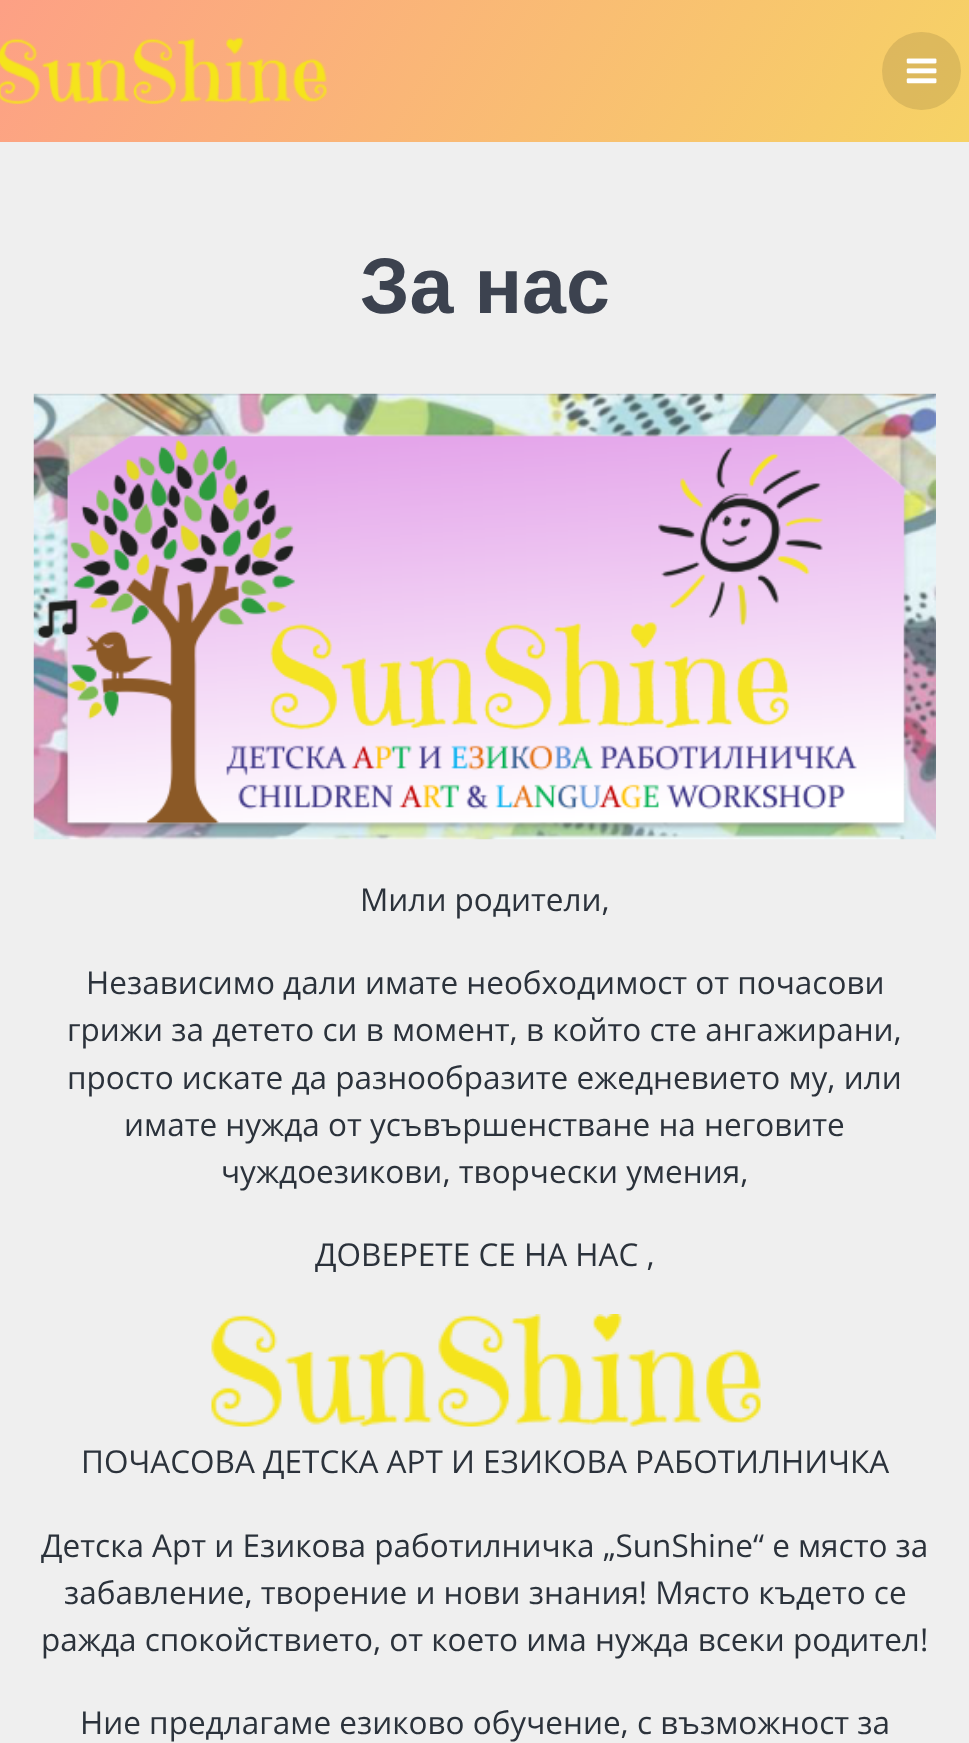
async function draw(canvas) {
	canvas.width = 969;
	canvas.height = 1743;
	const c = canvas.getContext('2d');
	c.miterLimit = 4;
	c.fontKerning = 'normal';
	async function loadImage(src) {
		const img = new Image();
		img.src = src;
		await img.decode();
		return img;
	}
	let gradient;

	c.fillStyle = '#fff';
	c.fillRect(0, 0, 969, 1743);
	gradient = c.createLinearGradient(91, -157, 879, 299);
	gradient.addColorStop(0, '#fda085');
	gradient.addColorStop(1, '#f6d365');
	c.fillStyle = gradient;
	c.fillRect(0, 0, 969, 142);
	c.drawImage(await loadImage('img1.png'), 0, 37, 327, 68);
	c.fillStyle = '#0000001a';
	c.beginPath();
	c.roundRect(882, 32, 79, 78, 39);
	c.fill();
	c.drawImage(await loadImage('img2.png'), 906, 58, 31, 26);
	c.fillStyle = '#efefef';
	c.fillRect(0, 142, 969, 1601);
	c.wordSpacing = '-1px';
	c.font = 'bold 79px Liberation Sans';
	c.fillStyle = '#3c424f';
	c.fillText('За нас', 360, 313);
	c.drawImage(await loadImage('img3.png'), 33, 393, 903, 447);
	c.wordSpacing = '0px';
	c.font = '31.5px Open Sans';
	c.fillStyle = '#2b323b';
	for (const [text, x, y] of [
		['Мили родители,', 360, 911],
		['Независимо дали имате необходимост от почасови', 86, 994],
		['грижи за детето си в момент, в който сте ангажирани,', 67, 1041],
		['просто искате да разнообразите ежедневието му, или', 67, 1089],
		['имате нужда от усъвършенстване на неговите', 124, 1136],
		['чуждоезикови, творчески умения,', 221, 1183],
		['ДОВЕРЕТЕ СЕ НА НАС ,', 315, 1266],
	]) {
		c.fillText(text, x, y);
	}
	c.drawImage(await loadImage('img4.png'), 211, 1314, 550, 113);
	for (const [text, x, y] of [
		['ПОЧАСОВА ДЕТСКА АРТ И ЕЗИКОВА РАБОТИЛНИЧКА', 81, 1473],
		['Детска Арт и Езикова работилничка „SunShine“ е място за', 41, 1557],
		['забавление, творение и нови знания! Място където се', 64, 1604],
		['ражда спокойствието, от което има нужда всеки родител!', 41, 1651],
		['Ние предлагаме езиково обучение, с възможност за', 80, 1734],
	]) {
		c.fillText(text, x, y);
	}
}

draw(document.querySelector('canvas'));
